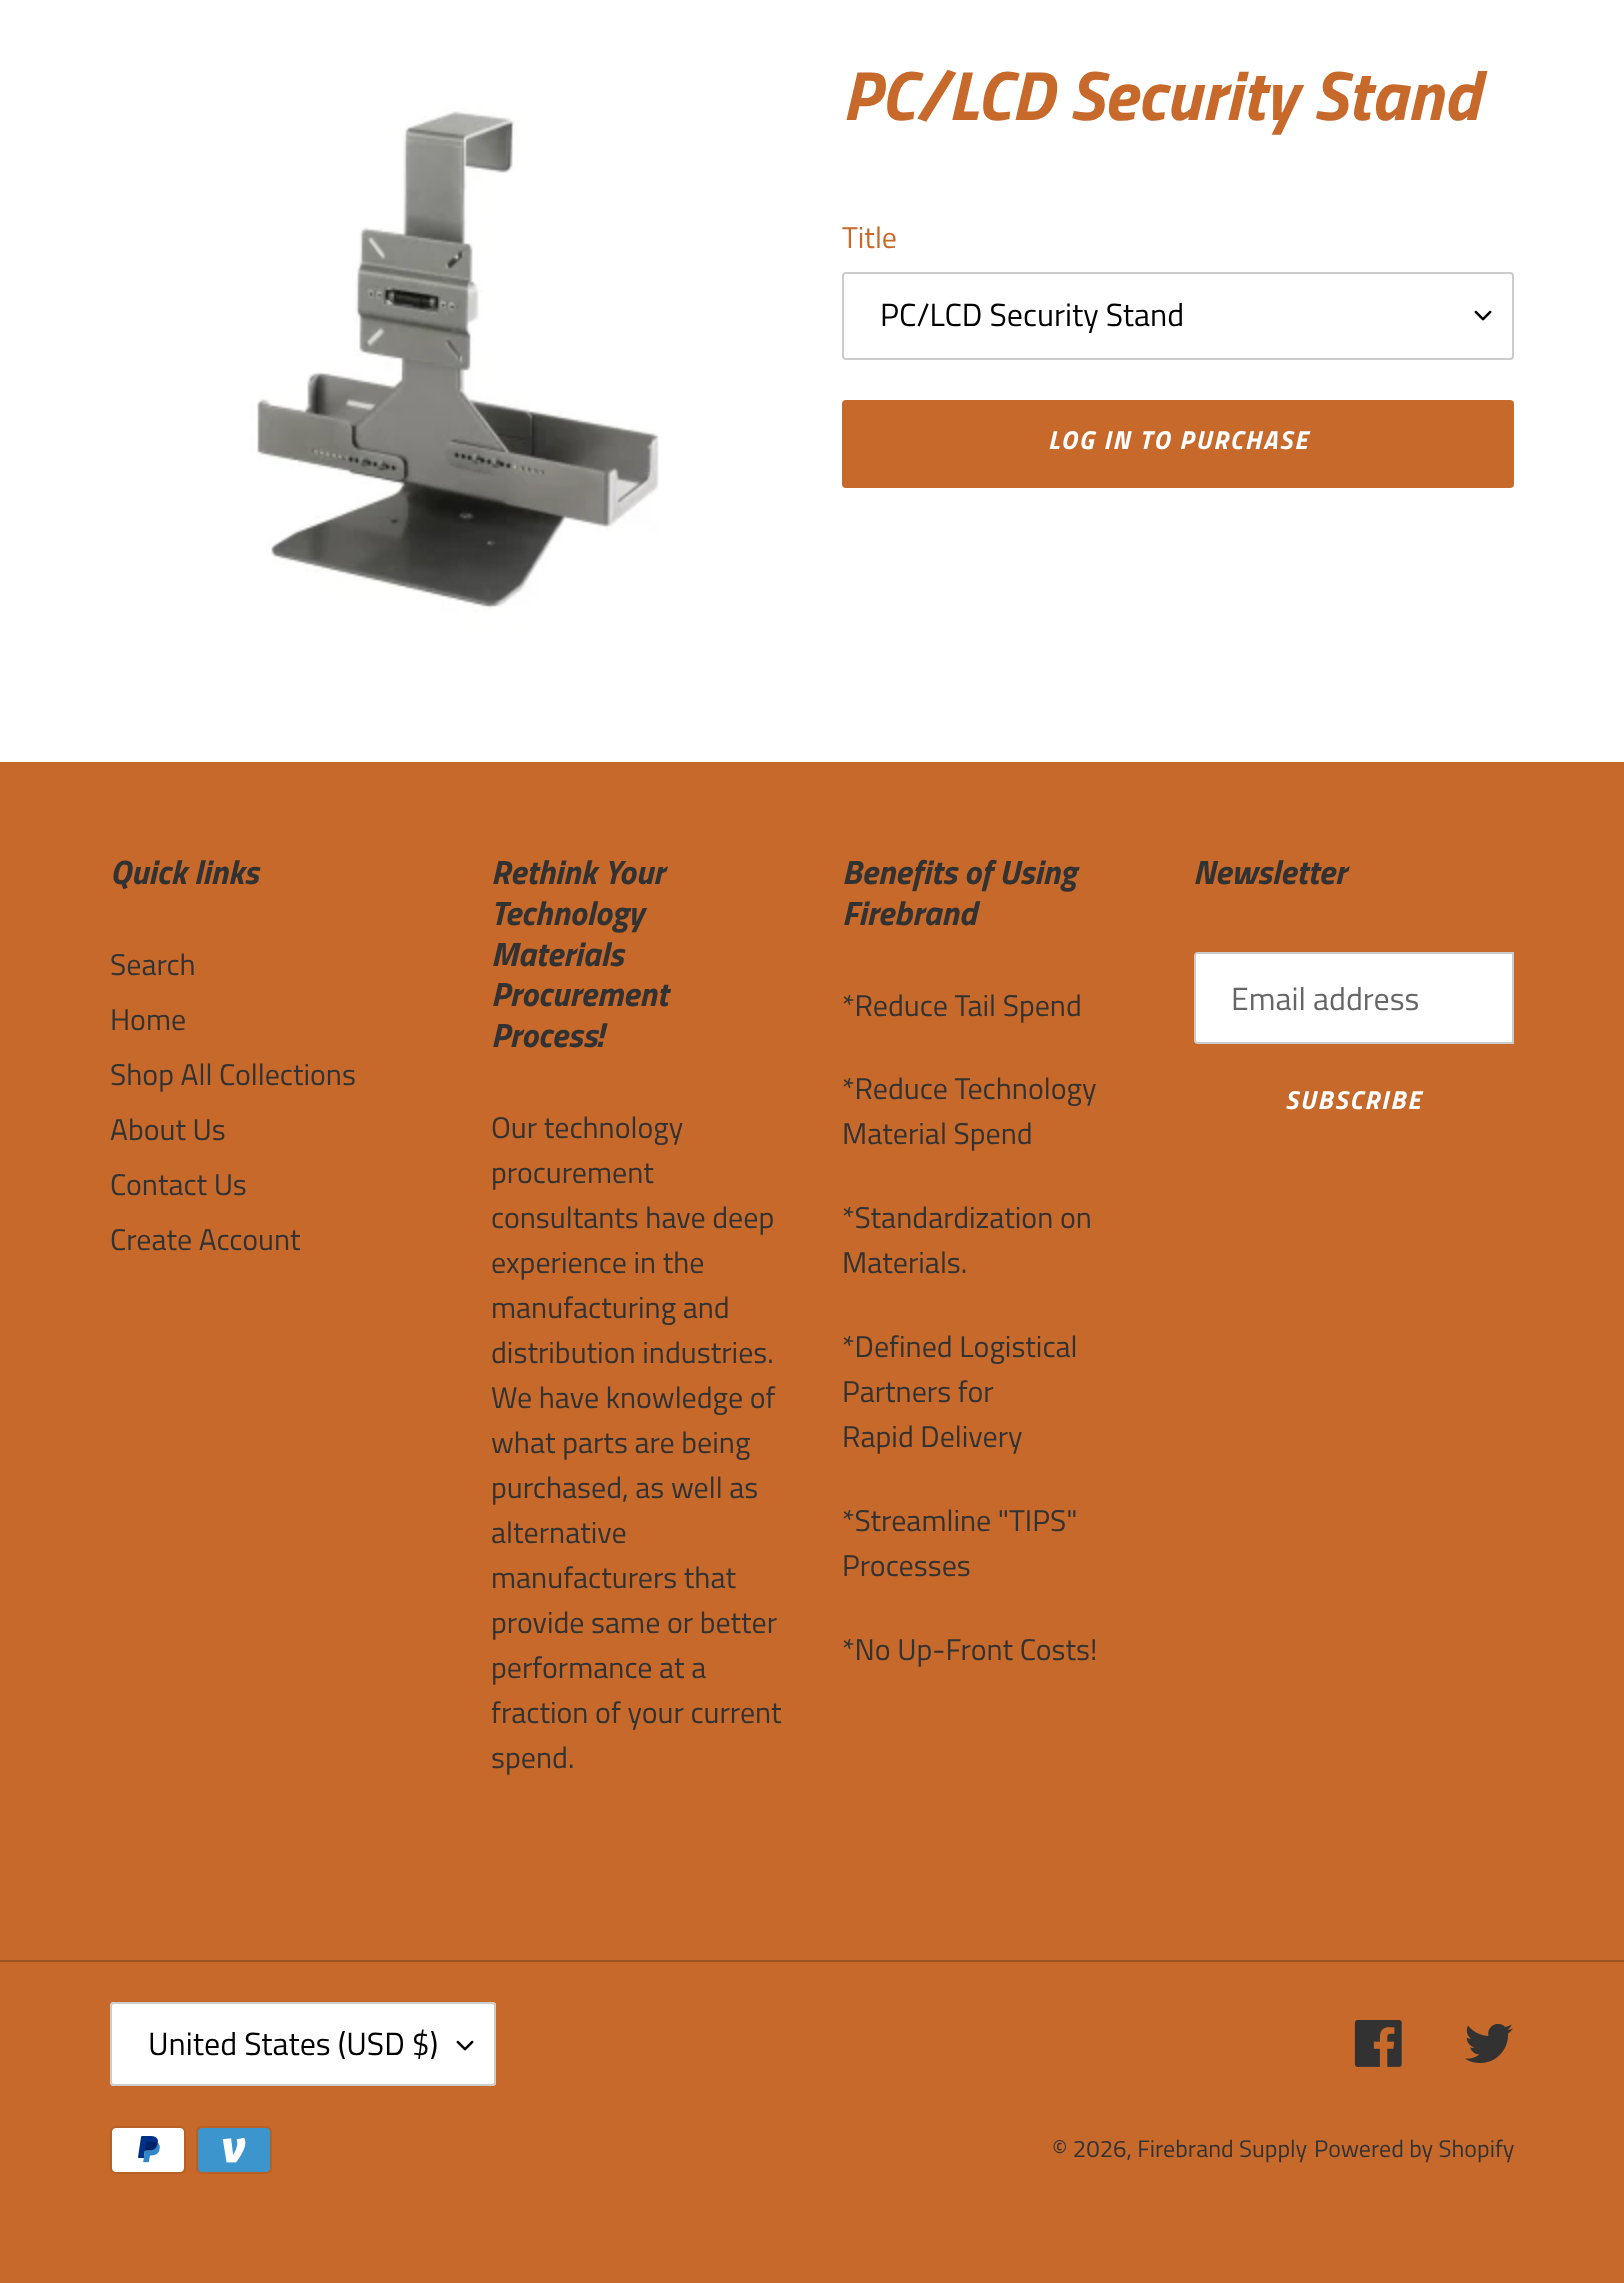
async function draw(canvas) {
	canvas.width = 1624;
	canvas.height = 2283;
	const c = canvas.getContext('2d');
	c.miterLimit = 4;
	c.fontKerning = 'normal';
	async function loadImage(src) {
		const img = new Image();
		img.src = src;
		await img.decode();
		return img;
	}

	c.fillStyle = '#fff';
	c.fillRect(0, 0, 1624, 2283);
	c.drawImage(await loadImage('img1.png'), 146, 52, 600, 600);
	c.font = 'italic bold 70px Titillium Web';
	c.fillStyle = '#c6692b';
	c.fillText('PC/LCD Security Stand', 842, 120);
	c.font = '30px Titillium Web';
	c.fillText('Title', 842, 248);
	c.drawImage(await loadImage('img2.png'), 1474, 310, 18, 11);
	c.beginPath();
	c.roundRect(843, 273, 670, 86, 3);
	c.strokeStyle = '#ccc';
	c.lineWidth = 2;
	c.stroke();
	c.font = '32px Titillium Web';
	c.fillStyle = '#000';
	c.fillText('PC/LCD Security Stand', 880, 326);
	c.fillStyle = '#c6692b';
	c.beginPath();
	c.roundRect(842, 400, 672, 88, 4);
	c.fill();
	c.letterSpacing = '2.1px';
	c.font = 'italic bold 26px Titillium Web';
	c.fillStyle = '#fff';
	c.fillText('LOG IN TO PURCHASE', 1048, 449);
	c.fillStyle = '#c6692b';
	c.fillRect(0, 762, 1624, 1521);
	c.letterSpacing = '0px';
	c.font = 'italic bold 34px Titillium Web';
	c.fillStyle = '#333232';
	c.fillText('Quick links', 110, 884);
	c.font = '30px Titillium Web';
	for (const [text, x, y] of [
		['Search', 110, 975],
		['Home', 110, 1030],
		['Shop All Collections', 110, 1085],
		['About Us', 110, 1140],
		['Contact Us', 110, 1195],
		['Create Account', 110, 1250],
	]) {
		c.fillText(text, x, y);
	}
	c.font = 'italic bold 34px Titillium Web';
	for (const [text, x, y] of [
		['Rethink Your', 491, 884],
		['Technology', 491, 925],
		['Materials', 491, 966],
		['Procurement', 491, 1006],
		['Process!', 491, 1047],
	]) {
		c.fillText(text, x, y);
	}
	c.font = '30px Titillium Web';
	for (const [text, x, y] of [
		['Our technology', 491, 1138],
		['procurement', 491, 1183],
		['consultants have deep', 491, 1228],
		['experience in the', 491, 1273],
		['manufacturing and', 491, 1318],
		['distribution industries.', 491, 1363],
		['We have knowledge of', 491, 1408],
		['what parts are being', 491, 1453],
		['purchased, as well as', 491, 1498],
		['alternative', 491, 1543],
		['manufacturers that', 491, 1588],
		['provide same or better', 491, 1633],
		['performance at a', 491, 1678],
		['fraction of your current', 491, 1723],
		['spend.', 491, 1768],
	]) {
		c.fillText(text, x, y);
	}
	c.font = 'italic bold 34px Titillium Web';
	c.fillText('Benefits of Using', 842, 884);
	c.fillText('Firebrand', 842, 925);
	c.font = '30px Titillium Web';
	for (const [text, x, y] of [
		['*Reduce Tail Spend', 842, 1016],
		['*Reduce Technology', 842, 1099],
		['Material Spend', 842, 1144],
		['*Standardization on', 842, 1228],
		['Materials.', 842, 1273],
		['*Defined Logistical', 842, 1357],
		['Partners for', 842, 1402],
		['Rapid Delivery', 842, 1447],
		['*Streamline "TIPS"', 842, 1531],
		['Processes', 842, 1576],
		['*No Up-Front Costs!', 842, 1660],
	]) {
		c.fillText(text, x, y);
	}
	c.font = 'italic bold 34px Titillium Web';
	c.fillText('Newsletter', 1193, 884);
	c.fillStyle = '#fff';
	c.beginPath();
	c.roundRect(1195, 953, 318, 90, [3, 0, 0, 3]);
	c.fill();
	c.stroke();
	c.font = '32px Titillium Web';
	c.fillStyle = '#666';
	c.fillText('Email address', 1231, 1010);
	c.letterSpacing = '2.1px';
	c.font = 'italic bold 26px Titillium Web';
	c.fillStyle = '#fff';
	c.fillText('SUBSCRIBE', 1285, 1109);
	c.fillStyle = '#9c5322';
	c.fillRect(0, 1960, 1624, 2);
	c.fillStyle = '#fff';
	c.beginPath();
	c.roundRect(110, 2002, 386, 84, 4);
	c.fill();
	c.drawImage(await loadImage('img2.png'), 456, 2040, 18, 11);
	c.beginPath();
	c.roundRect(111, 2003, 384, 82, 3);
	c.stroke();
	c.letterSpacing = '0px';
	c.font = '32px Titillium Web';
	c.fillStyle = '#000';
	c.fillText('United States (USD $)', 148, 2055);
	c.drawImage(await loadImage('img3.png'), 1354, 2020, 48, 47);
	c.drawImage(await loadImage('img4.png'), 1465, 2023, 48, 40);
	c.drawImage(await loadImage('img5.png'), 110, 2126, 76, 48);
	c.drawImage(await loadImage('img6.png'), 196, 2126, 76, 48);
	c.font = '24px Titillium Web';
	c.fillStyle = '#333232';
	c.fillText('© 2026, Firebrand Supply', 1052, 2157);
	c.fillText('Powered by Shopify', 1314, 2157);
}

draw(document.querySelector('canvas'));
